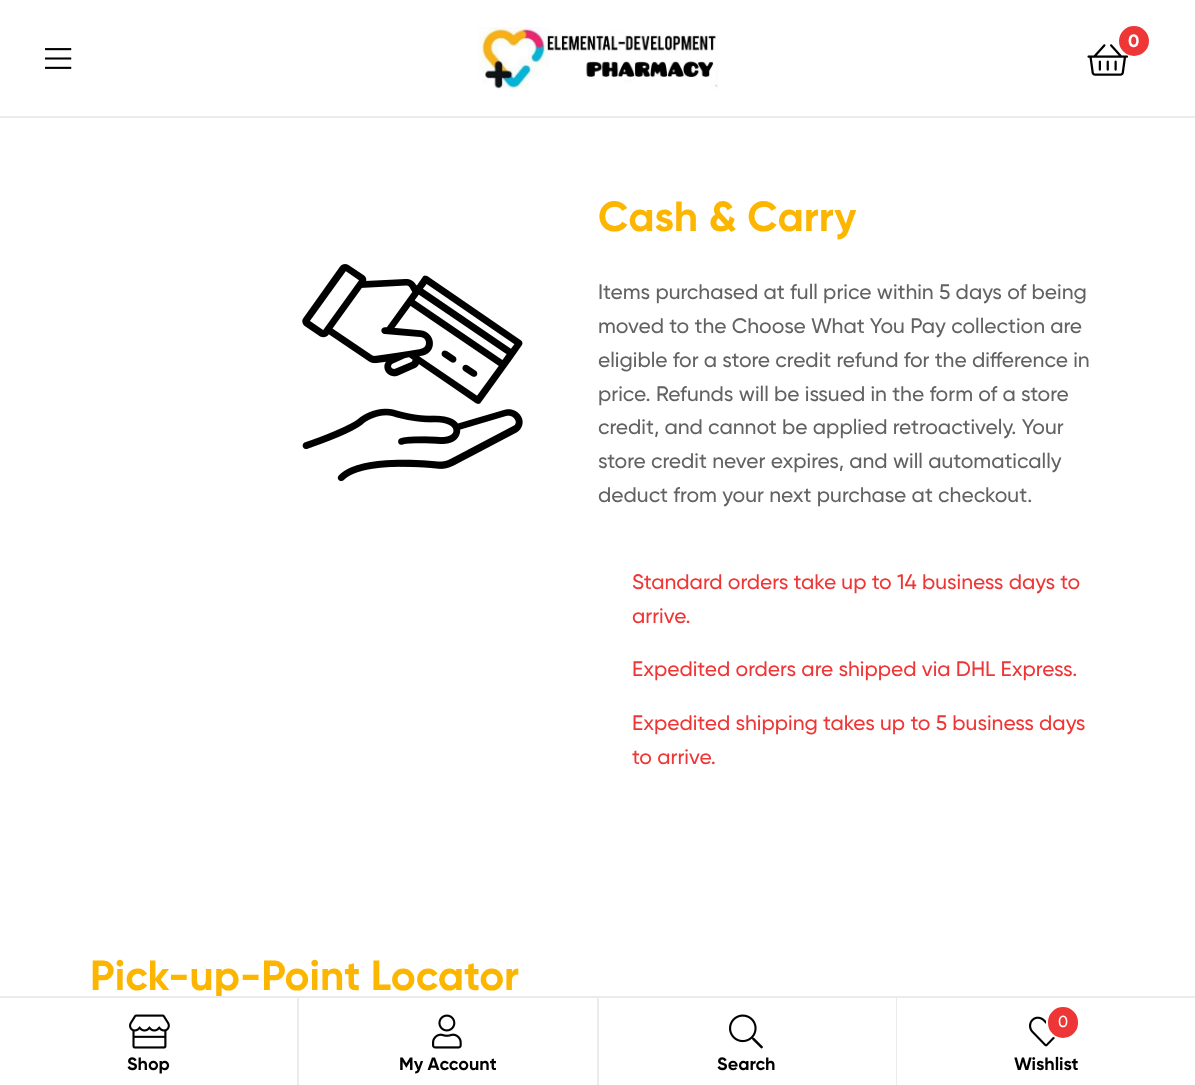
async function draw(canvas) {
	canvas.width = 1195;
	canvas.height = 1085;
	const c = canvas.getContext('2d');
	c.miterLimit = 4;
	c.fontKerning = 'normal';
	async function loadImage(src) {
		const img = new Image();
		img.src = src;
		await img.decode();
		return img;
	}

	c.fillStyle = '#fff';
	c.fillRect(0, 0, 1195, 1085);
	c.fillStyle = '#ebebeb';
	c.fillRect(0, 116, 1195, 2);
	c.drawImage(await loadImage('img1.png'), 478, 27, 240, 63);
	c.drawImage(await loadImage('img2.png'), 1087, 44, 41, 32);
	c.fillStyle = '#ef3636';
	c.beginPath();
	c.arc(1134, 41, 15, 0, 2 * Math.PI);
	c.fill();
	c.font = 'bold 18px Gilroy';
	c.fillStyle = '#fff';
	c.fillText('0', 1128, 47);
	c.drawImage(await loadImage('img3.png'), 45, 48, 27, 21);
	c.drawImage(await loadImage('img4.png'), 302, 264, 221, 217);
	c.font = 'bold 42px Gilroy';
	c.fillStyle = '#fcb600';
	c.fillText('Cash & Carry', 598, 231);
	c.font = '500 21px Gilroy';
	c.fillStyle = '#626262';
	for (const [text, x, y] of [
		['Items purchased at full price within 5 days of being', 598, 299],
		['moved to the Choose What You Pay collection are', 598, 333],
		['eligible for a store credit refund for the difference in', 598, 367],
		['price. Refunds will be issued in the form of a store', 598, 401],
		['credit, and cannot be applied retroactively. Your', 598, 434],
		['store credit never expires, and will automatically', 598, 468],
		['deduct from your next purchase at checkout.', 598, 502],
	]) {
		c.fillText(text, x, y);
	}
	c.fillStyle = '#ef3636';
	for (const [text, x, y] of [
		['Standard orders take up to 14 business days to', 632, 589],
		['arrive.', 632, 623],
		['Expedited orders are shipped via DHL Express.', 632, 676],
		['Expedited shipping takes up to 5 business days', 632, 730],
		['to arrive.', 632, 764],
	]) {
		c.fillText(text, x, y);
	}
	c.font = 'bold 42px Gilroy';
	c.fillStyle = '#fcb600';
	c.fillText('Pick-up-Point Locator', 90, 990);
	for (const [x, y, w, h, color] of [
		[0, 996, 1195, 2, '#ebebeb'],
		[216, 998, 6, 1, '#fff'],
		[297, 998, 2, 87, '#ebebeb'],
	]) {
		c.fillStyle = color;
		c.fillRect(x, y, w, h);
	}
	c.drawImage(await loadImage('img5.png'), 129, 1014, 41, 35);
	c.font = 'bold 18px Gilroy';
	c.fillStyle = '#000';
	c.fillText('Shop', 127, 1070);
	c.fillStyle = '#ebebeb';
	c.fillRect(597, 998, 2, 87);
	c.drawImage(await loadImage('img6.png'), 432, 1014, 30, 35);
	c.fillStyle = '#000';
	c.fillText('My Account', 399, 1070);
	c.fillStyle = '#ebebeb';
	c.fillRect(896, 998, 1, 87);
	c.drawImage(await loadImage('img7.png'), 729, 1014, 34, 35);
	c.fillStyle = '#000';
	c.fillText('Search', 717, 1070);
	c.drawImage(await loadImage('img8.png'), 1029, 1016, 26, 31);
	c.fillStyle = '#ef3636';
	c.beginPath();
	c.roundRect(1047, 1006, 32, 33, 16);
	c.fill();
	c.strokeStyle = '#fff';
	c.lineWidth = 2;
	c.stroke();
	c.font = '500 16px Gilroy';
	c.fillStyle = '#fff';
	c.fillText('0', 1058, 1027);
	c.font = 'bold 18px Gilroy';
	c.fillStyle = '#000';
	c.fillText('Wishlist', 1014, 1070);
}

draw(document.querySelector('canvas'));
